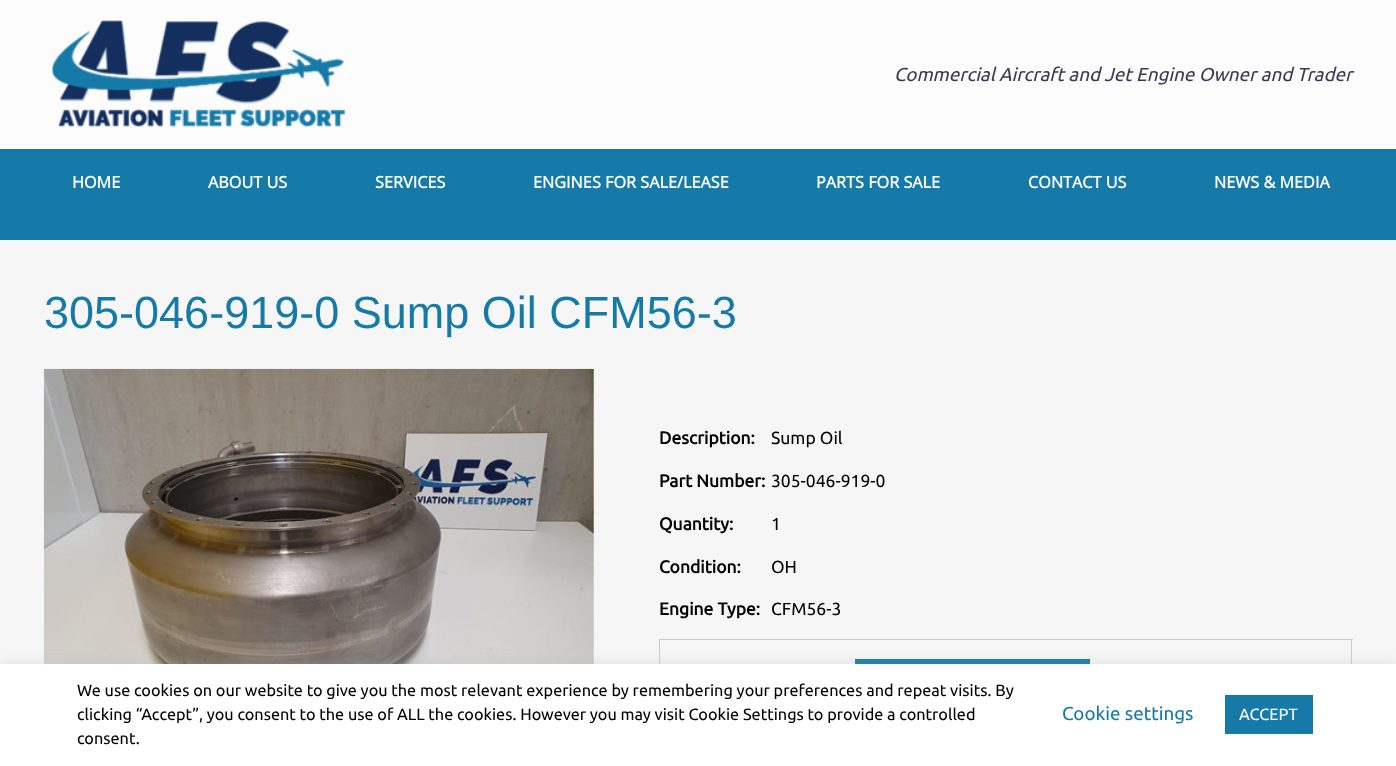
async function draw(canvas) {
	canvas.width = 1396;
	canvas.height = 766;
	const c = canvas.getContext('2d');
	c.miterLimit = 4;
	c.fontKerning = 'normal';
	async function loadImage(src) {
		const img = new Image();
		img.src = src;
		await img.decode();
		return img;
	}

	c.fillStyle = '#fcfcfc';
	c.fillRect(0, 0, 1396, 766);
	c.drawImage(await loadImage('img1.png'), 52, 20, 294, 107);
	c.font = 'italic 18.75px Ubuntu';
	c.fillStyle = '#3c3950';
	c.fillText('Commercial Aircraft and Jet Engine Owner and Trader', 894, 81);
	c.fillStyle = '#157aa8';
	c.fillRect(0, 149, 1396, 91);
	c.font = 'bold 16.25px Open Sans';
	c.fillStyle = '#fff';
	for (const [text, x, y] of [
		['HOME', 72, 188],
		['ABOUT US', 208, 188],
		['SERVICES', 375, 188],
		['ENGINES FOR SALE/LEASE', 533, 188],
		['PARTS FOR SALE', 816, 188],
		['CONTACT US', 1028, 188],
		['NEWS & MEDIA', 1214, 188],
	]) {
		c.fillText(text, x, y);
	}
	c.fillStyle = '#f6f6f6';
	c.fillRect(0, 240, 1396, 424);
	c.font = '45px Liberation Sans';
	c.fillStyle = '#157aa8';
	c.fillText('305-046-919-0 Sump Oil CFM56-3', 44, 328);
	c.drawImage(await loadImage('img2.png'), 43, 368, 551, 296);
	c.fillStyle = '#ccc';
	c.fillRect(659, 639, 694, 1);
	c.font = 'bold 17.5px Ubuntu';
	c.fillStyle = '#000';
	c.fillText('Description:', 659, 444);
	c.font = '17.5px Ubuntu';
	c.fillText('Sump Oil', 771, 444);
	c.font = 'bold 17.5px Ubuntu';
	c.fillText('Part Number:', 659, 487);
	c.font = '17.5px Ubuntu';
	c.fillText('305-046-919-0', 771, 487);
	c.font = 'bold 17.5px Ubuntu';
	c.fillText('Quantity:', 659, 530);
	c.font = '17.5px Ubuntu';
	c.fillText('1', 771, 530);
	c.font = 'bold 17.5px Ubuntu';
	c.fillText('Condition:', 659, 573);
	c.font = '17.5px Ubuntu';
	c.fillText('OH', 771, 573);
	c.font = 'bold 17.5px Ubuntu';
	c.fillText('Engine Type:', 659, 615);
	c.font = '17.5px Ubuntu';
	c.fillText('CFM56-3', 771, 615);
	for (const [x, y, w, h, color] of [
		[1351, 640, 1, 24, '#ccc'],
		[659, 640, 1, 24, '#ccc'],
		[855, 659, 235, 5, '#157aa8'],
	]) {
		c.fillStyle = color;
		c.fillRect(x, y, w, h);
	}
	c.fillStyle = '#acabab4d';
	c.filter = 'blur(6px)';
	c.beginPath();
	c.rect(0, 663, 1396, 102);
	c.fill();
	c.filter = 'none';
	c.fillStyle = '#fff';
	c.fillRect(0, 664, 1396, 102);
	c.font = '16.25px Ubuntu';
	c.fillStyle = '#000';
	for (const [text, x, y] of [
		['We use cookies on our website to give you the most relevant experience by remembering your preferences and repeat visits. By', 77, 696],
		['clicking “Accept”, you consent to the use of ALL the cookies. However you may visit Cookie Settings to provide a controlled', 77, 720],
		['consent.', 77, 744],
	]) {
		c.fillText(text, x, y);
	}
	c.font = '18.75px Ubuntu';
	c.fillStyle = '#157aa8';
	c.fillText('Cookie settings', 1062, 720);
	c.fillRect(1225, 695, 88, 39);
	c.font = '16.25px Ubuntu';
	c.fillStyle = '#fff';
	c.fillText('ACCEPT', 1239, 720);
}

draw(document.querySelector('canvas'));
